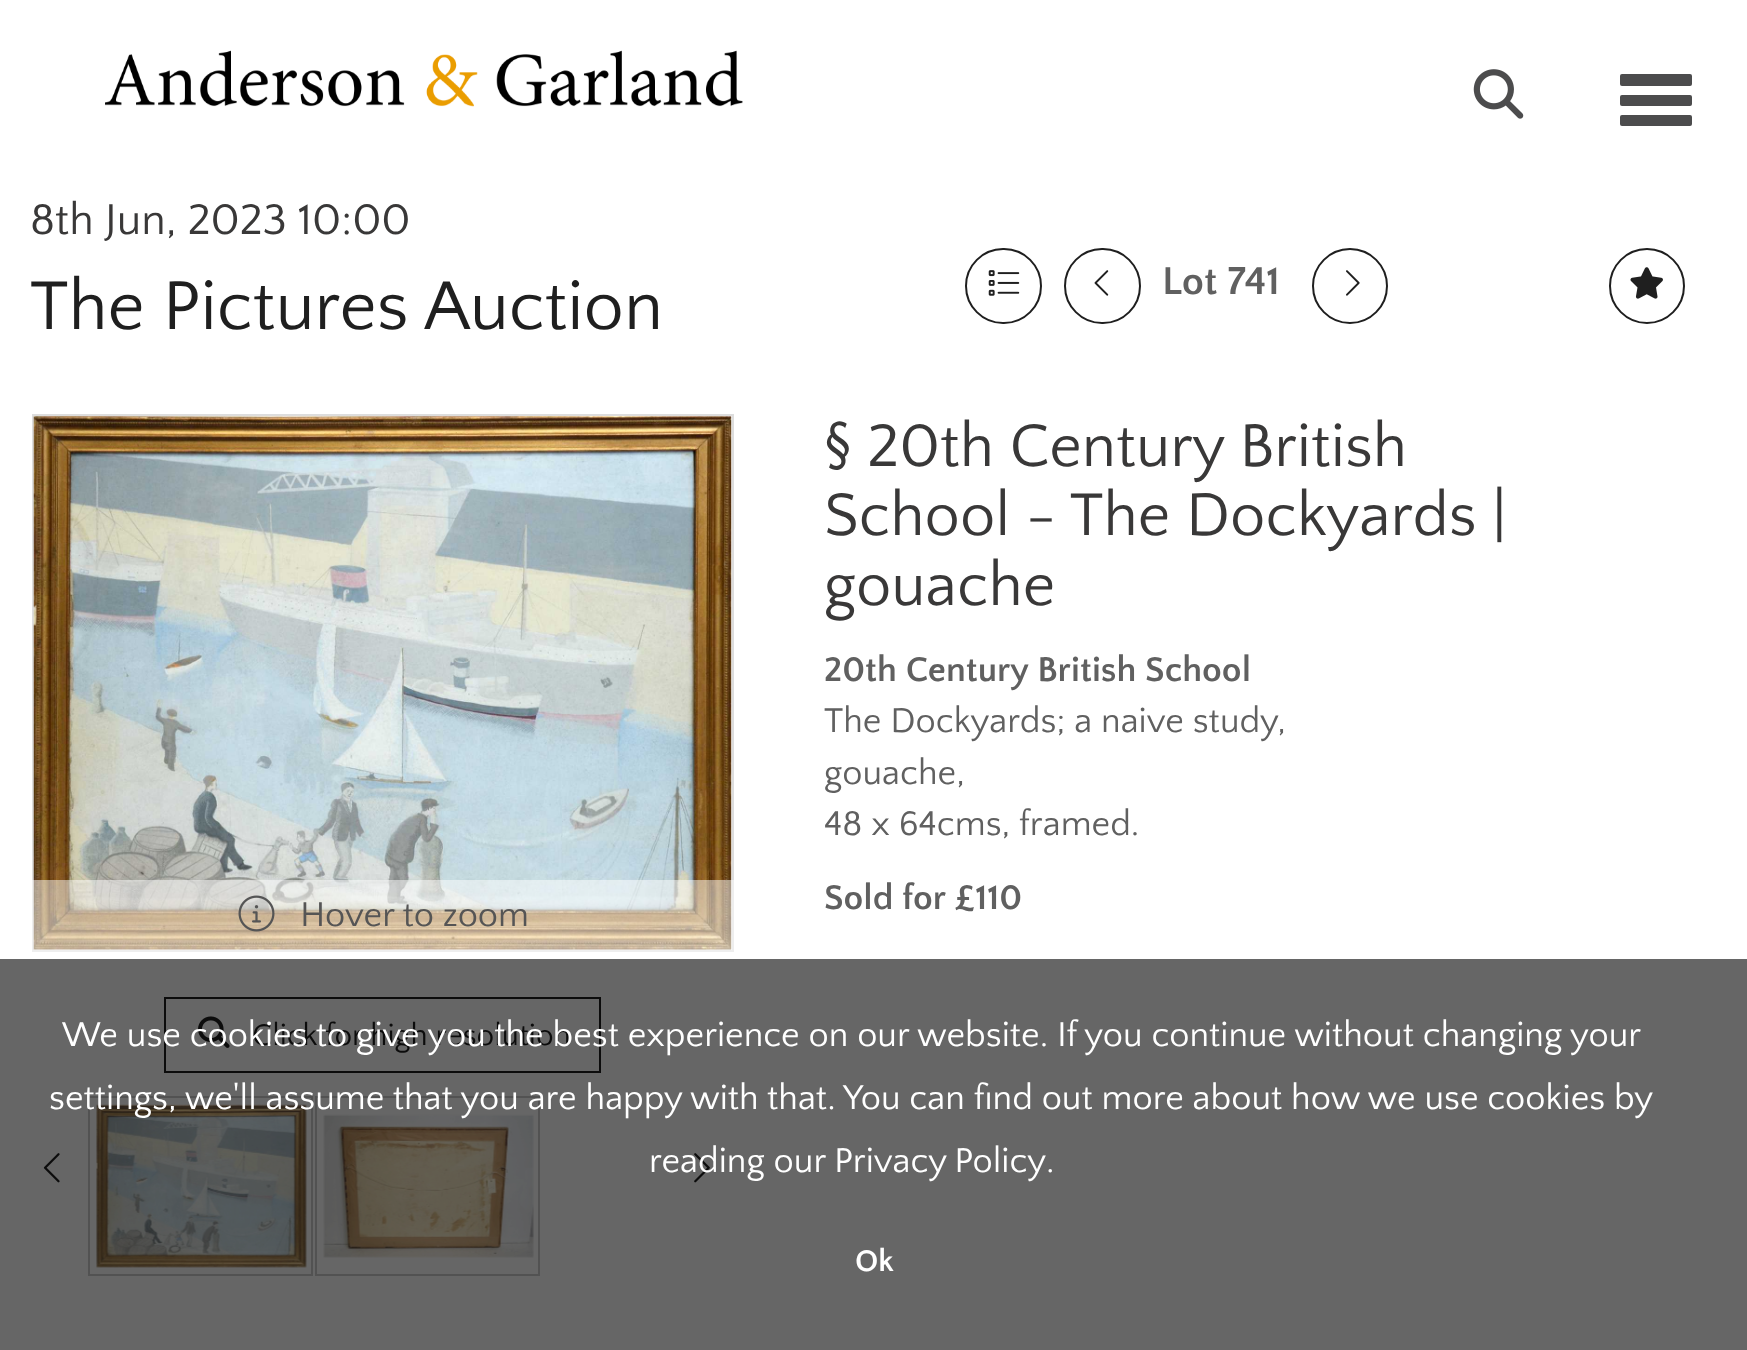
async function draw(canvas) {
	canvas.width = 1747;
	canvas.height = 1350;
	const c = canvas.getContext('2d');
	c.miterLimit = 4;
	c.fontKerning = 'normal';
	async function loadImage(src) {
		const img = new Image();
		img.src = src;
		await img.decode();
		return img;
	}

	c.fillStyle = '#fff';
	c.fillRect(0, 0, 1747, 1350);
	c.fillStyle = '#666';
	c.fillRect(0, 959, 1747, 391);
	c.drawImage(await loadImage('img1.png'), 105, 50, 638, 57);
	c.drawImage(await loadImage('img2.png'), 1473, 69, 51, 50);
	c.fillStyle = '#4c4c4d';
	c.beginPath();
	c.roundRect(1620, 74, 72, 12, 2);
	c.fill();
	c.beginPath();
	c.roundRect(1620, 95, 72, 11, 2);
	c.fill();
	c.beginPath();
	c.roundRect(1620, 115, 72, 11, 2);
	c.fill();
	c.font = '45px Quattrocento Sans';
	c.fillStyle = '#393838';
	c.fillText('8th Jun, 2023 10:00', 30, 234);
	c.font = '72px Quattrocento Sans';
	c.fillStyle = '#1f1f1f';
	c.fillText('The Pictures Auction', 30, 329);
	c.beginPath();
	c.roundRect(966, 249, 75, 74, 37);
	c.strokeStyle = '#1f1f1f';
	c.lineWidth = 2;
	c.stroke();
	c.drawImage(await loadImage('img3.png'), 988, 270, 32, 26);
	c.beginPath();
	c.roundRect(1065, 249, 75, 74, 37);
	c.stroke();
	c.drawImage(await loadImage('img4.png'), 1094, 270, 15, 26);
	c.font = 'bold 40.5px Quattrocento Sans';
	c.fillStyle = '#606060';
	c.fillText('Lot 741', 1162, 294);
	c.beginPath();
	c.arc(1350, 286, 37, 0, 2 * Math.PI);
	c.stroke();
	c.drawImage(await loadImage('img5.png'), 1346, 270, 14, 26);
	c.beginPath();
	c.arc(1647, 286, 37, 0, 2 * Math.PI);
	c.stroke();
	c.drawImage(await loadImage('img6.png'), 1630, 267, 33, 32);
	c.font = '63px Quattrocento Sans';
	c.fillStyle = '#393838';
	for (const [text, x, y] of [
		['§ 20th Century British', 824, 466],
		['School - The Dockyards |', 824, 535],
		['gouache', 824, 605],
	]) {
		c.fillText(text, x, y);
	}
	c.font = 'bold 36px Quattrocento Sans';
	c.fillStyle = '#606060';
	c.fillText('20th Century British School', 824, 681);
	c.font = '36px Quattrocento Sans';
	for (const [text, x, y] of [
		['The Dockyards; a naive study,', 824, 732],
		['gouache,', 824, 784],
		['48 x 64cms, framed.', 824, 835],
	]) {
		c.fillText(text, x, y);
	}
	c.font = 'bold 36px Quattrocento Sans';
	c.fillText('Sold for £110', 824, 909);
	c.strokeStyle = '#ddd';
	c.strokeRect(33, 415, 700, 536);
	c.drawImage(await loadImage('img7.png'), 33, 416, 699, 534);
	c.fillStyle = '#ffffff80';
	c.fillRect(32, 880, 702, 72);
	c.drawImage(await loadImage('img8.png'), 238, 895, 37, 37);
	c.font = '36px Quattrocento Sans';
	c.fillStyle = '#555';
	c.fillText('Hover to zoom', 300, 926);
	c.strokeStyle = '#0c0c0c';
	c.strokeRect(165, 998, 435, 74);
	c.drawImage(await loadImage('img9.png'), 198, 1016, 32, 32);
	c.font = '31.5px Quattrocento Sans';
	c.fillStyle = '#0c0c0c';
	c.fillText('Click for high resolution', 252, 1045);
	c.drawImage(await loadImage('img10.png'), 43, 1153, 17, 30);
	c.strokeStyle = '#525252';
	c.strokeRect(89, 1097, 223, 178);
	c.drawImage(await loadImage('img11.png'), 96, 1104, 211, 164);
	c.strokeRect(316, 1097, 223, 178);
	c.drawImage(await loadImage('img12.png'), 323, 1114, 211, 144);
	c.drawImage(await loadImage('img13.png'), 694, 1153, 16, 30);
	c.font = '36px Quattrocento Sans';
	c.fillStyle = '#fff';
	for (const [text, x, y] of [
		['We use cookies to give you the best experience on our website. If you continue without changing your', 62, 1046],
		['settings, we\'ll assume that you are happy with that. You can find out more about how we use cookies by', 49, 1109],
		['reading our', 649, 1172],
	]) {
		c.fillText(text, x, y);
	}
	c.wordSpacing = '-1px';
	c.fillText('Privacy Policy', 834, 1172);
	c.wordSpacing = '0px';
	c.fillText('.', 1046, 1172);
	c.font = 'bold 31.5px Quattrocento Sans';
	c.fillText('Ok', 855, 1271);
}

draw(document.querySelector('canvas'));
